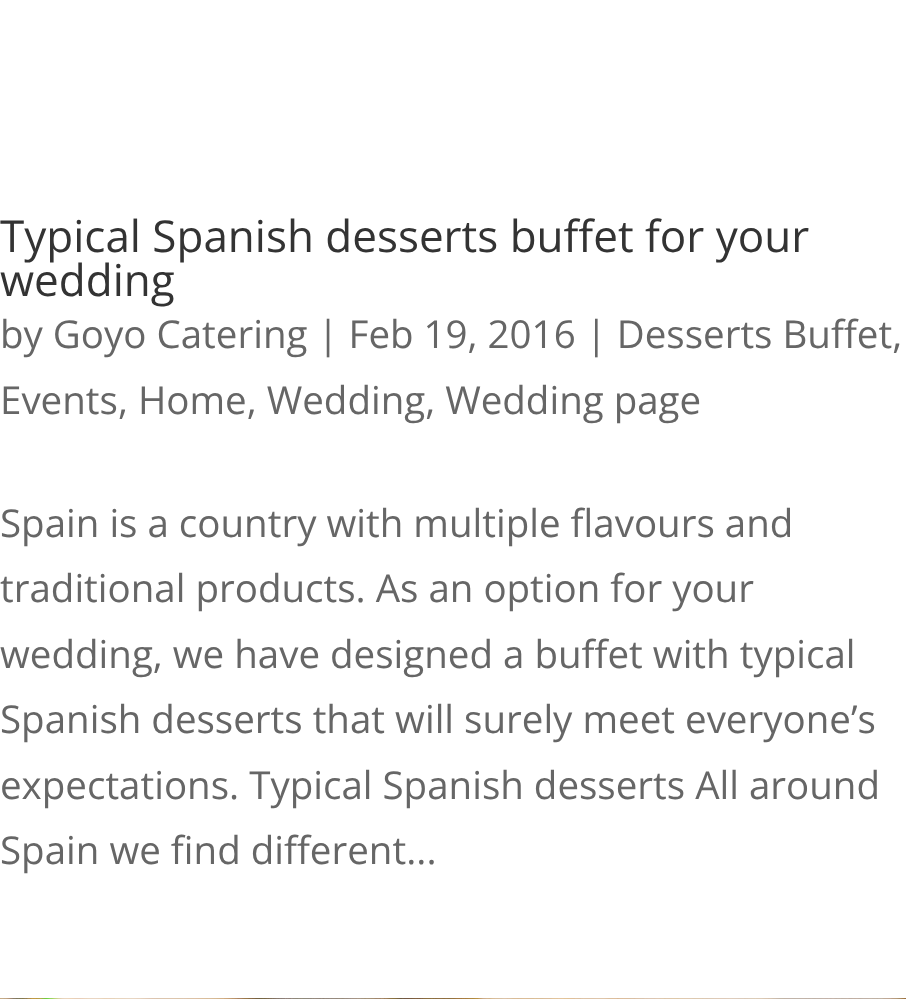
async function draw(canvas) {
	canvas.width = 906;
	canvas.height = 999;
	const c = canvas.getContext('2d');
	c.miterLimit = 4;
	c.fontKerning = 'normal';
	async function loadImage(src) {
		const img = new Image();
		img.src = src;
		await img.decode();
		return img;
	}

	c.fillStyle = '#fff';
	c.fillRect(0, 0, 906, 999);
	c.font = '44px Open Sans';
	c.fillStyle = '#333';
	c.fillText('Typical Spanish desserts buffet for your', 0, 252);
	c.fillText('wedding', 0, 296);
	c.font = '38.5px Open Sans';
	c.fillStyle = '#666';
	for (const [text, x, y] of [
		['by Goyo Catering | Feb 19, 2016 | Desserts Buffet,', 0, 348],
		['Events, Home, Wedding, Wedding page', 0, 414],
		['Spain is a country with multiple flavours and', 0, 537],
		['traditional products. As an option for your', 0, 602],
		['wedding, we have designed a buffet with typical', 0, 668],
		['Spanish desserts that will surely meet everyone’s', 0, 733],
		['expectations. Typical Spanish desserts All around', 0, 799],
		['Spain we find different...', 0, 864],
	]) {
		c.fillText(text, x, y);
	}
	c.drawImage(await loadImage('img1.png'), 0, 998, 906, 1);
}

draw(document.querySelector('canvas'));
